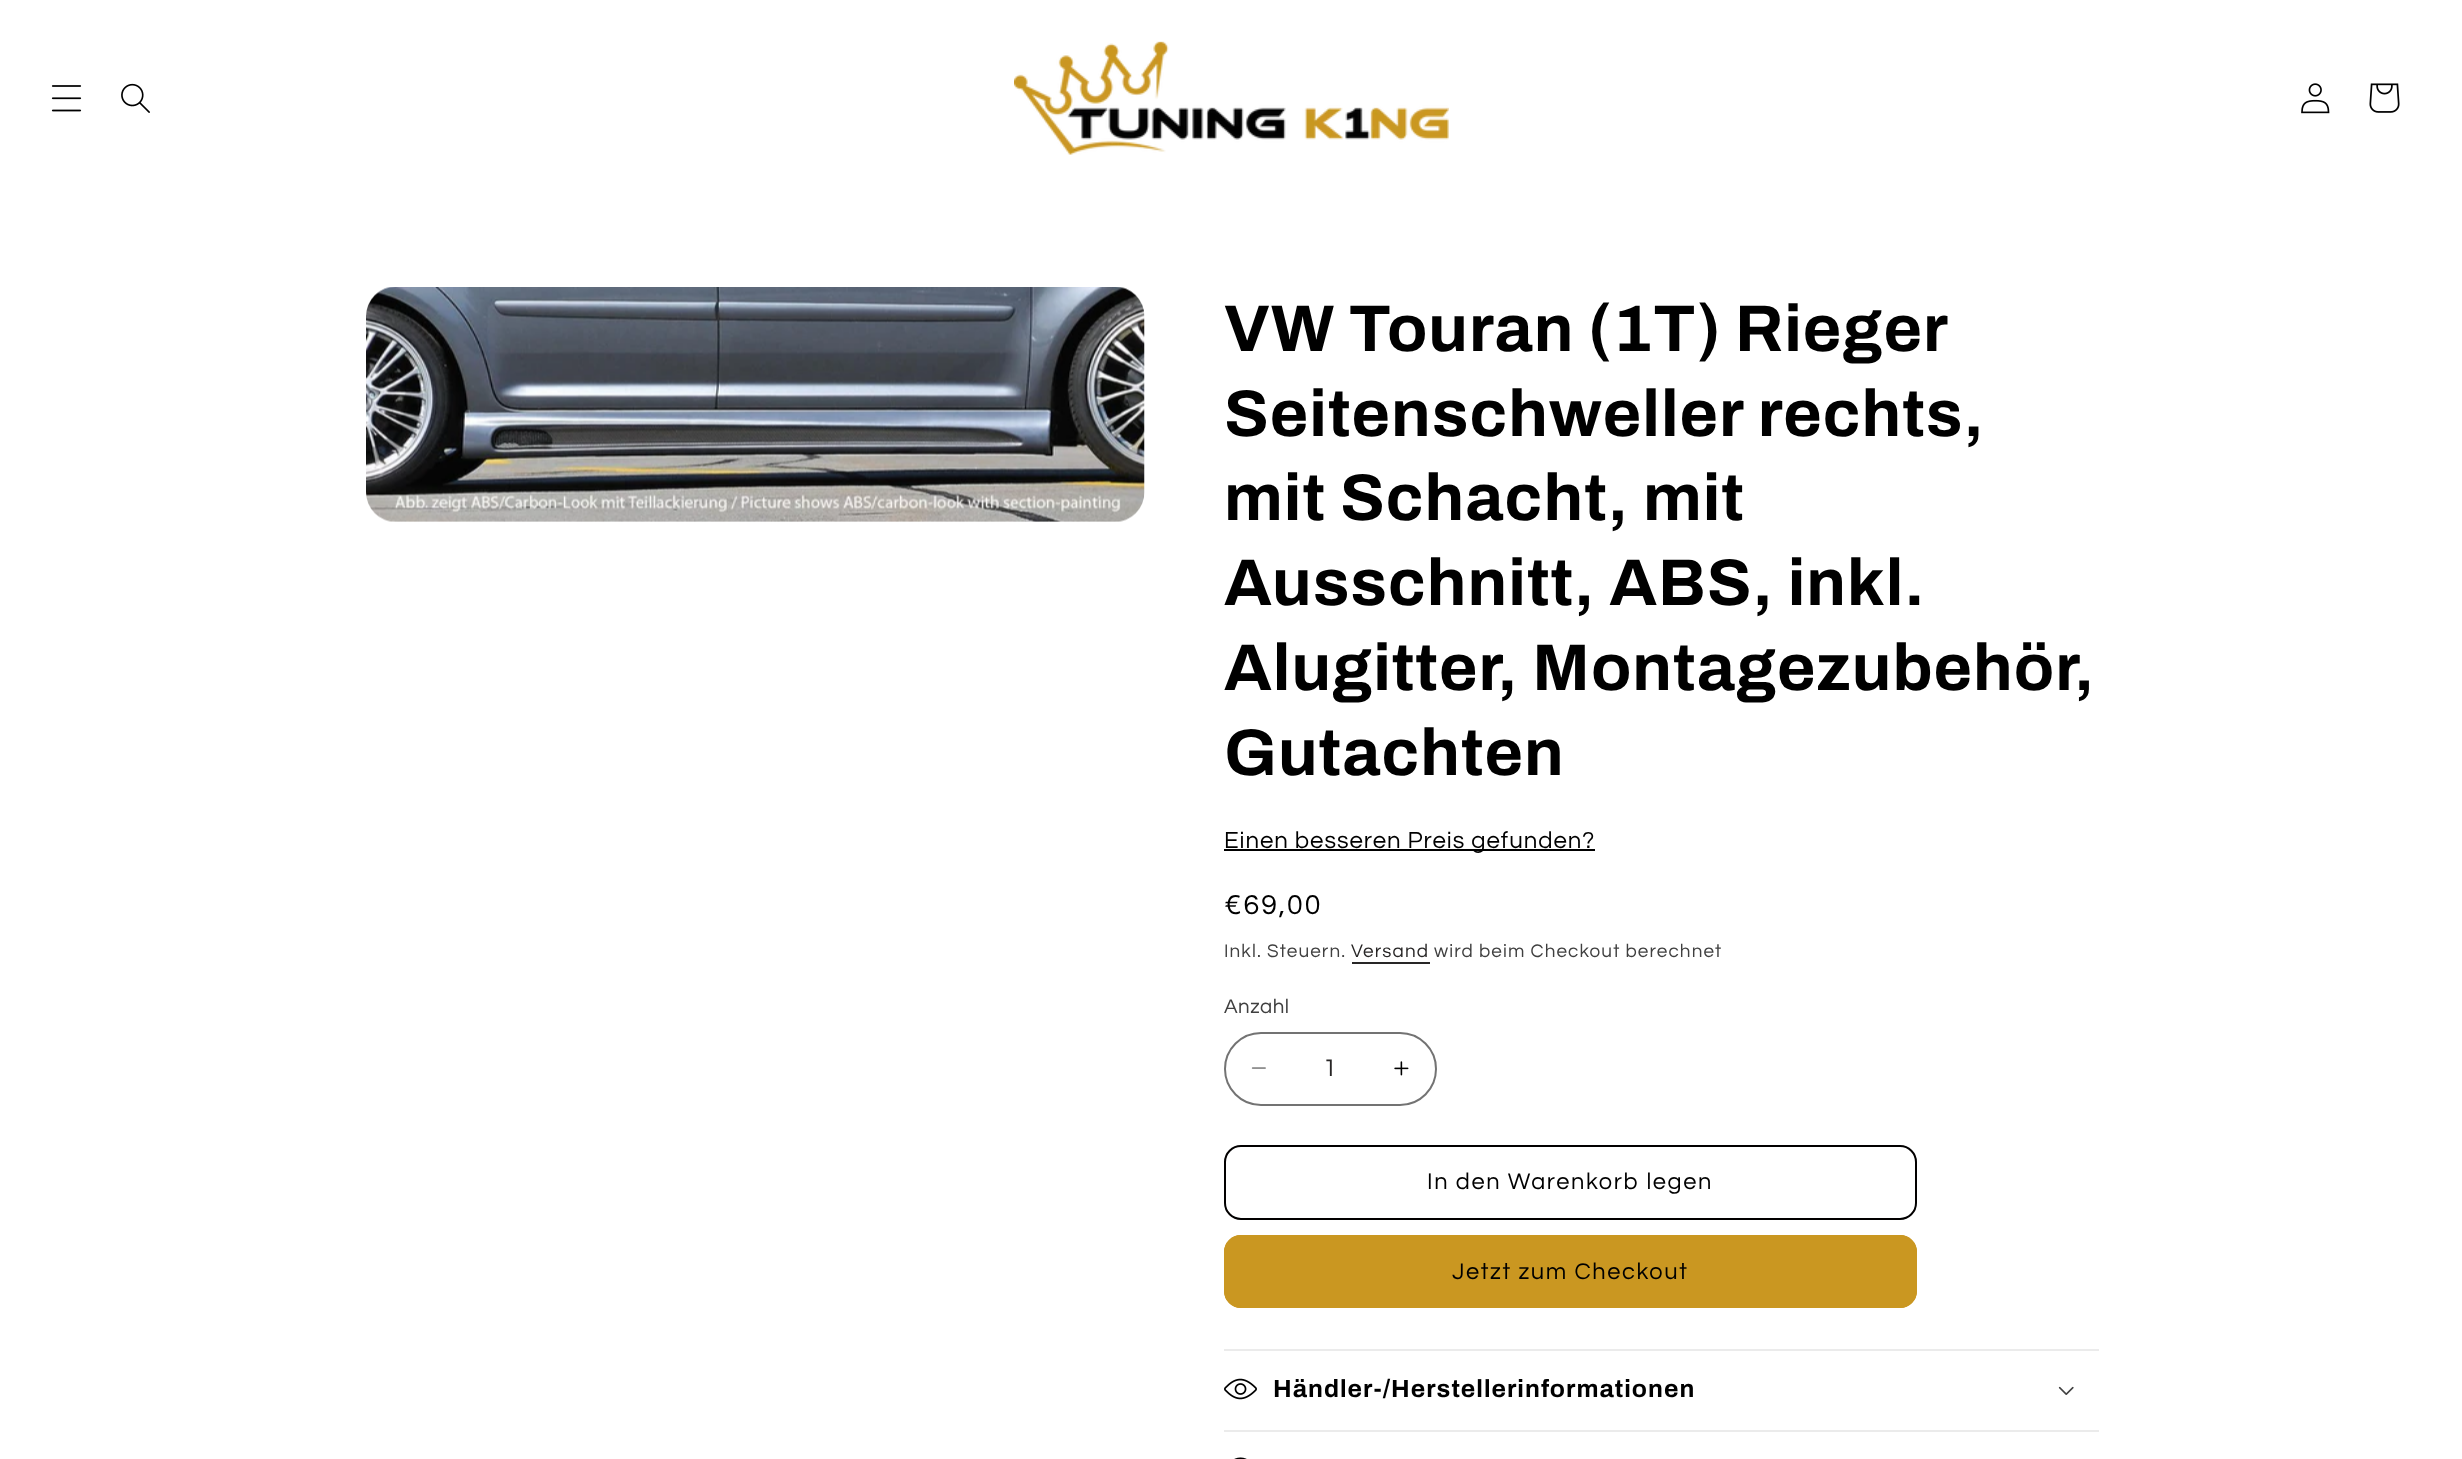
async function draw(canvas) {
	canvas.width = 2462;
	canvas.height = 1459;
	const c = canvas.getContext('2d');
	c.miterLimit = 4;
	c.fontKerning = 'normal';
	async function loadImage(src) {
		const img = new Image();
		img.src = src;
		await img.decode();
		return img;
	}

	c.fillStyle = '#fff';
	c.fillRect(0, 0, 2462, 1459);
	c.drawImage(await loadImage('img1.png'), 51, 85, 31, 27);
	c.drawImage(await loadImage('img2.png'), 121, 83, 29, 30);
	c.drawImage(await loadImage('img3.png'), 1014, 41, 435, 114);
	c.drawImage(await loadImage('img4.png'), 2301, 83, 29, 31);
	c.drawImage(await loadImage('img5.png'), 2369, 83, 31, 30);
	c.drawImage(await loadImage('img6.png'), 366, 287, 779, 235);
	c.letterSpacing = '1px';
	c.wordSpacing = '-0.5px';
	c.font = 'bold 66px Archivo';
	c.fillStyle = '#000';
	c.fillText('VW Touran (1T) Rieger', 1224, 351);
	c.wordSpacing = '0px';
	for (const [text, x, y] of [
		['Seitenschweller rechts,', 1224, 436],
		['mit Schacht, mit', 1224, 520],
		['Ausschnitt, ABS, inkl.', 1224, 605],
		['Alugitter, Montagezubehör,', 1224, 690],
		['Gutachten', 1224, 775],
	]) {
		c.fillText(text, x, y);
	}
	c.fillRect(1224, 849, 371, 2);
	c.letterSpacing = '0.95px';
	c.font = '24px Questrial';
	c.fillText('Einen besseren Preis gefunden?', 1224, 848);
	c.letterSpacing = '2px';
	c.font = '28.5px Questrial';
	c.fillText('€69,00', 1224, 914);
	c.letterSpacing = '1.1px';
	c.font = '18.9px Questrial';
	c.fillStyle = '#404040';
	c.fillText('Inkl. Steuern.', 1224, 957);
	c.fillStyle = '#282626';
	c.fillText('Versand', 1351, 957);
	c.fillRect(1352, 962, 78, 2);
	c.fillStyle = '#404040';
	c.fillText('wird beim Checkout berechnet', 1434, 957);
	c.letterSpacing = '0.5px';
	c.font = '20.5px Questrial';
	c.fillText('Anzahl', 1224, 1013);
	c.drawImage(await loadImage('img7.png'), 1251, 1067, 15, 2);
	c.drawImage(await loadImage('img8.png'), 1394, 1061, 15, 15);
	c.beginPath();
	c.roundRect(1225, 1033, 211, 72, 36);
	c.strokeStyle = '#737373';
	c.lineWidth = 2;
	c.stroke();
	c.letterSpacing = '0px';
	c.font = '25px Questrial';
	c.fillStyle = '#282626';
	c.fillText('1', 1323, 1076);
	c.beginPath();
	c.roundRect(1225, 1146, 691, 73, 16);
	c.strokeStyle = '#020000';
	c.stroke();
	c.letterSpacing = '1.6px';
	c.font = '23.6px Questrial';
	c.fillStyle = '#000';
	c.fillText('In den Warenkorb legen', 1427, 1189);
	c.fillStyle = '#ca9721';
	c.beginPath();
	c.roundRect(1224, 1235, 693, 73, 17);
	c.fill();
	c.beginPath();
	c.roundRect(1225, 1236, 691, 71, 16);
	c.strokeStyle = '#ca9721';
	c.stroke();
	c.fillStyle = '#000';
	c.fillText('Jetzt zum Checkout', 1452, 1279);
	c.fillStyle = '#ebebeb';
	c.fillRect(1224, 1349, 875, 2);
	c.fillRect(1224, 1430, 875, 2);
	c.drawImage(await loadImage('img9.png'), 1224, 1378, 33, 22);
	c.letterSpacing = '1px';
	c.font = 'bold 24.75px Archivo';
	c.fillStyle = '#000';
	c.fillText('Händler-/Herstellerinformationen', 1273, 1397);
	c.drawImage(await loadImage('img10.png'), 2058, 1386, 16, 9);
	c.drawImage(await loadImage('img11.png'), 1234, 1457, 13, 2);
}

draw(document.querySelector('canvas'));
